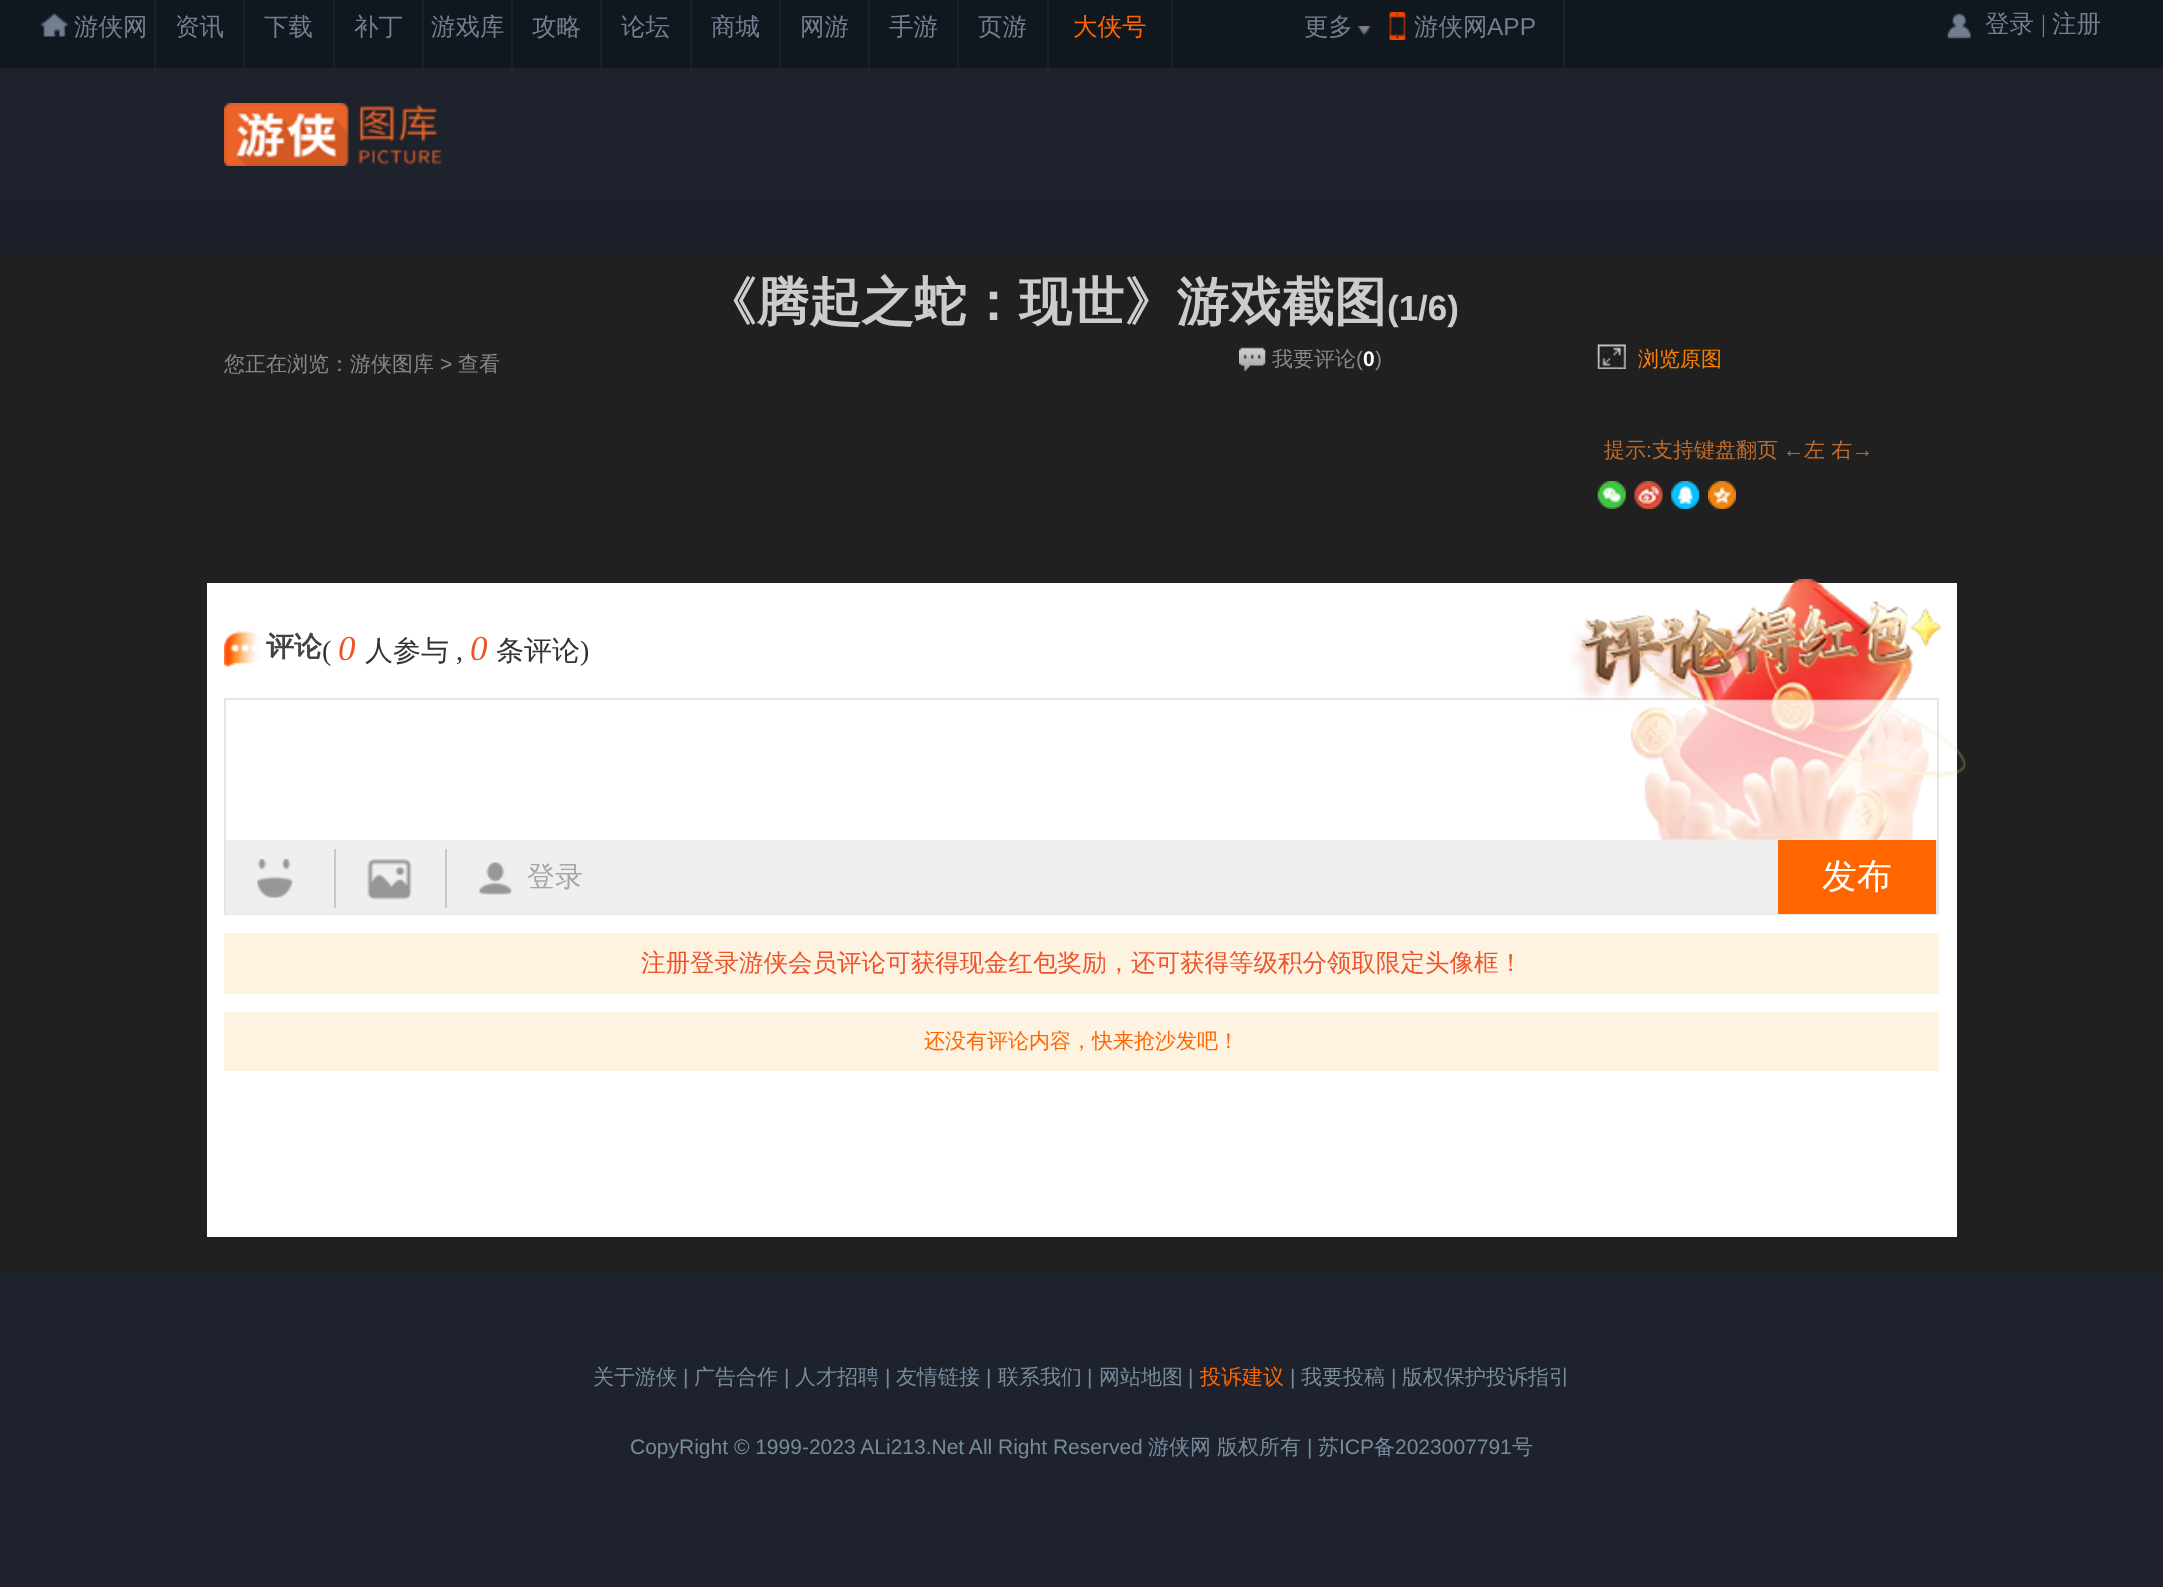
async function draw(canvas) {
	canvas.width = 2163;
	canvas.height = 1587;
	const c = canvas.getContext('2d');
	c.miterLimit = 4;
	c.fontKerning = 'normal';
	async function loadImage(src) {
		const img = new Image();
		img.src = src;
		await img.decode();
		return img;
	}

	c.fillStyle = '#202020';
	c.fillRect(0, 0, 2163, 1587);
	c.fillStyle = '#11171e';
	c.fillRect(0, 0, 2163, 68);
	c.drawImage(await loadImage('img1.png'), 40, 13, 29, 24);
	c.fillStyle = '#19202a';
	c.fillRect(154, 0, 2, 68);
	c.font = '500 24.5px WenQuanYi Zen Hei';
	c.fillStyle = '#737e91';
	c.fillText('游侠网', 74, 35);
	c.fillStyle = '#19202a';
	c.fillRect(243, 0, 2, 68);
	c.fillStyle = '#737e91';
	c.fillText('资讯', 175, 35);
	c.fillStyle = '#19202a';
	c.fillRect(333, 0, 2, 68);
	c.fillStyle = '#737e91';
	c.fillText('下载', 264, 35);
	c.fillStyle = '#19202a';
	c.fillRect(422, 0, 2, 68);
	c.fillStyle = '#737e91';
	c.fillText('补丁', 354, 35);
	c.fillStyle = '#19202a';
	c.fillRect(511, 0, 2, 68);
	c.fillStyle = '#737e91';
	c.fillText('游戏库', 431, 35);
	c.fillStyle = '#19202a';
	c.fillRect(600, 0, 2, 68);
	c.fillStyle = '#737e91';
	c.fillText('攻略', 532, 35);
	c.fillStyle = '#19202a';
	c.fillRect(690, 0, 2, 68);
	c.fillStyle = '#737e91';
	c.fillText('论坛', 621, 35);
	c.fillStyle = '#19202a';
	c.fillRect(779, 0, 2, 68);
	c.fillStyle = '#737e91';
	c.fillText('商城', 711, 35);
	c.fillStyle = '#19202a';
	c.fillRect(868, 0, 2, 68);
	c.fillStyle = '#737e91';
	c.fillText('网游', 800, 35);
	c.fillStyle = '#19202a';
	c.fillRect(957, 0, 2, 68);
	c.fillStyle = '#737e91';
	c.fillText('手游', 889, 35);
	c.fillStyle = '#19202a';
	c.fillRect(1047, 0, 2, 68);
	c.fillStyle = '#737e91';
	c.fillText('页游', 978, 35);
	c.fillStyle = '#19202a';
	c.fillRect(1171, 0, 2, 68);
	c.fillStyle = '#f60';
	c.fillText('大侠号', 1073, 35);
	c.fillStyle = '#737e91';
	c.fillText('更多', 1304, 35);
	c.drawImage(await loadImage('img2.png'), 1358, 26, 13, 9);
	c.drawImage(await loadImage('img3.png'), 1389, 12, 17, 28);
	c.fillStyle = '#1e222d';
	c.fillRect(1563, 0, 2, 68);
	c.fillStyle = '#737e91';
	c.fillText('游侠网', 1414, 35);
	c.font = '24.5px Liberation Sans';
	c.fillText('APP', 1487, 35);
	c.drawImage(await loadImage('img4.png'), 1947, 13, 24, 26);
	c.font = '500 24.5px WenQuanYi Zen Hei';
	c.fillText('登录', 1985, 32);
	c.font = '24.5px Liberation Serif';
	c.fillText('|', 2041, 32);
	c.font = '500 24.5px WenQuanYi Zen Hei';
	c.fillText('注册', 2052, 32);
	c.fillStyle = '#1e222d';
	c.fillRect(0, 68, 2163, 133);
	c.drawImage(await loadImage('img5.png'), 224, 103, 218, 63);
	c.fillStyle = '#1c1f29';
	c.fillRect(0, 201, 2163, 53);
	c.font = 'bold 52.5px WenQuanYi Zen Hei';
	c.fillStyle = '#ccc';
	c.fillText('《腾起之蛇：现世》游戏截图', 704, 320);
	c.font = 'bold 35px Liberation Sans';
	c.fillText('(1/6)', 1387, 320);
	c.font = '500 21px WenQuanYi Zen Hei';
	c.fillStyle = '#888';
	c.fillText('您正在浏览：游侠图库', 224, 371);
	c.font = '21px Liberation Sans';
	c.fillText('>', 440, 371);
	c.font = '500 21px WenQuanYi Zen Hei';
	c.fillText('查看', 458, 371);
	c.drawImage(await loadImage('img6.png'), 1239, 347, 27, 24);
	c.fillText('我要评论', 1272, 366);
	c.font = '21px Liberation Sans';
	c.fillText('(', 1356, 366);
	c.font = 'bold 21px Liberation Sans';
	c.fillStyle = '#fff';
	c.fillText('0', 1363, 366);
	c.font = '21px Liberation Sans';
	c.fillStyle = '#888';
	c.fillText(')', 1375, 366);
	c.drawImage(await loadImage('img7.png'), 1597, 344, 29, 25);
	c.font = '500 21px WenQuanYi Zen Hei';
	c.fillStyle = '#ff8000';
	c.fillText('浏览原图', 1638, 366);
	c.fillStyle = '#c06b2a';
	c.fillText('提示', 1604, 457);
	c.font = '21px Liberation Sans';
	c.fillText(':', 1646, 457);
	c.font = '500 21px WenQuanYi Zen Hei';
	c.fillText('支持键盘翻页', 1652, 457);
	c.font = '21px Liberation Sans';
	c.fillText('←', 1783, 457);
	c.font = '500 21px WenQuanYi Zen Hei';
	c.fillText('左 右', 1804, 457);
	c.font = '21px Liberation Sans';
	c.fillText('→', 1852, 457);
	c.drawImage(await loadImage('img8.png'), 1597, 481, 29, 28);
	c.drawImage(await loadImage('img9.png'), 1634, 481, 29, 28);
	c.drawImage(await loadImage('img10.png'), 1671, 481, 29, 28);
	c.drawImage(await loadImage('img11.png'), 1708, 481, 28, 28);
	c.fillStyle = '#fff';
	c.fillRect(207, 583, 1750, 654);
	c.drawImage(await loadImage('img12.png'), 224, 631, 37, 36);
	c.font = 'bold 28px WenQuanYi Zen Hei';
	c.fillStyle = '#444';
	c.fillText('评论', 266, 656);
	c.font = '28px Liberation Serif';
	c.fillStyle = '#333';
	c.fillText('(', 322, 660);
	c.font = 'italic 35px Liberation Serif';
	c.fillStyle = '#ee542a';
	c.fillText('0', 338, 660);
	c.font = '500 28px WenQuanYi Zen Hei';
	c.fillStyle = '#333';
	c.fillText('人参与', 365, 660);
	c.font = '28px Liberation Serif';
	c.fillText(',', 456, 660);
	c.font = 'italic 35px Liberation Serif';
	c.fillStyle = '#ee542a';
	c.fillText('0', 470, 660);
	c.font = '500 28px WenQuanYi Zen Hei';
	c.fillStyle = '#333';
	c.fillText('条评论', 496, 660);
	c.font = '28px Liberation Serif';
	c.fillText(')', 580, 660);
	c.strokeStyle = '#e5e5e5';
	c.lineWidth = 2;
	c.strokeRect(225, 699, 1713, 215);
	c.drawImage(await loadImage('img13.png'), 1570, 579, 396, 261);
	for (const [x, y, w, h, color] of [
		[226, 840, 1552, 74, '#efefef'],
		[1936, 840, 1, 74, '#e5e5e5'],
		[334, 849, 2, 59, '#c8c8c8'],
	]) {
		c.fillStyle = color;
		c.fillRect(x, y, w, h);
	}
	c.drawImage(await loadImage('img14.png'), 257, 859, 36, 39);
	c.fillRect(445, 849, 2, 59);
	c.drawImage(await loadImage('img15.png'), 367, 859, 45, 41);
	c.drawImage(await loadImage('img16.png'), 479, 862, 33, 33);
	c.font = '500 28px WenQuanYi Zen Hei';
	c.fillStyle = '#a6a6a6';
	c.fillText('登录', 527, 886);
	c.fillStyle = '#f60';
	c.fillRect(1778, 840, 158, 74);
	c.font = '500 35px WenQuanYi Zen Hei';
	c.fillStyle = '#fff';
	c.fillText('发布', 1822, 888);
	c.fillStyle = '#fef2e1';
	c.fillRect(224, 933, 1715, 61);
	c.font = '500 24.5px WenQuanYi Zen Hei';
	c.fillStyle = '#ee542a';
	c.fillText('注册登录游侠会员评论可获得现金红包奖励，还可获得等级积分领取限定头像框！', 641, 971);
	c.fillStyle = '#fef2e1';
	c.fillRect(224, 1012, 1715, 59);
	c.font = '500 21px WenQuanYi Zen Hei';
	c.fillStyle = '#f60';
	c.fillText('还没有评论内容，快来抢沙发吧！', 924, 1048);
	c.fillStyle = '#1e222d';
	c.fillRect(0, 1272, 2163, 315);
	c.fillStyle = '#768b9c';
	c.fillText('关于游侠', 593, 1384);
	c.font = '21px Liberation Sans';
	c.fillText('|', 683, 1384);
	c.font = '500 21px WenQuanYi Zen Hei';
	c.fillText('广告合作', 694, 1384);
	c.font = '21px Liberation Sans';
	c.fillText('|', 784, 1384);
	c.font = '500 21px WenQuanYi Zen Hei';
	c.fillText('人才招聘', 795, 1384);
	c.font = '21px Liberation Sans';
	c.fillText('|', 885, 1384);
	c.font = '500 21px WenQuanYi Zen Hei';
	c.fillText('友情链接', 896, 1384);
	c.font = '21px Liberation Sans';
	c.fillText('|', 986, 1384);
	c.font = '500 21px WenQuanYi Zen Hei';
	c.fillText('联系我们', 998, 1384);
	c.font = '21px Liberation Sans';
	c.fillText('|', 1087, 1384);
	c.font = '500 21px WenQuanYi Zen Hei';
	c.fillText('网站地图', 1099, 1384);
	c.font = '21px Liberation Sans';
	c.fillText('|', 1188, 1384);
	c.font = '500 21px WenQuanYi Zen Hei';
	c.fillStyle = '#f60';
	c.fillText('投诉建议', 1200, 1384);
	c.font = '21px Liberation Sans';
	c.fillStyle = '#768b9c';
	c.fillText('|', 1290, 1384);
	c.font = '500 21px WenQuanYi Zen Hei';
	c.fillText('我要投稿', 1301, 1384);
	c.font = '21px Liberation Sans';
	c.fillText('|', 1391, 1384);
	c.font = '500 21px WenQuanYi Zen Hei';
	c.fillText('版权保护投诉指引', 1402, 1384);
	c.font = '21px Liberation Sans';
	c.fillText('CopyRight © 1999-2023 ALi213.Net All Right Reserved', 630, 1454);
	c.font = '500 21px WenQuanYi Zen Hei';
	c.fillText('游侠网', 1148, 1454);
	c.fillText('版权所有', 1217, 1454);
	c.font = '21px Liberation Sans';
	c.fillText('|', 1307, 1454);
	c.font = '500 21px WenQuanYi Zen Hei';
	c.fillText('苏', 1318, 1454);
	c.font = '21px Liberation Sans';
	c.fillText('ICP', 1339, 1454);
	c.font = '500 21px WenQuanYi Zen Hei';
	c.fillText('备', 1374, 1454);
	c.font = '21px Liberation Sans';
	c.fillText('2023007791', 1395, 1454);
	c.font = '500 21px WenQuanYi Zen Hei';
	c.fillText('号', 1512, 1454);
}

draw(document.querySelector('canvas'));
